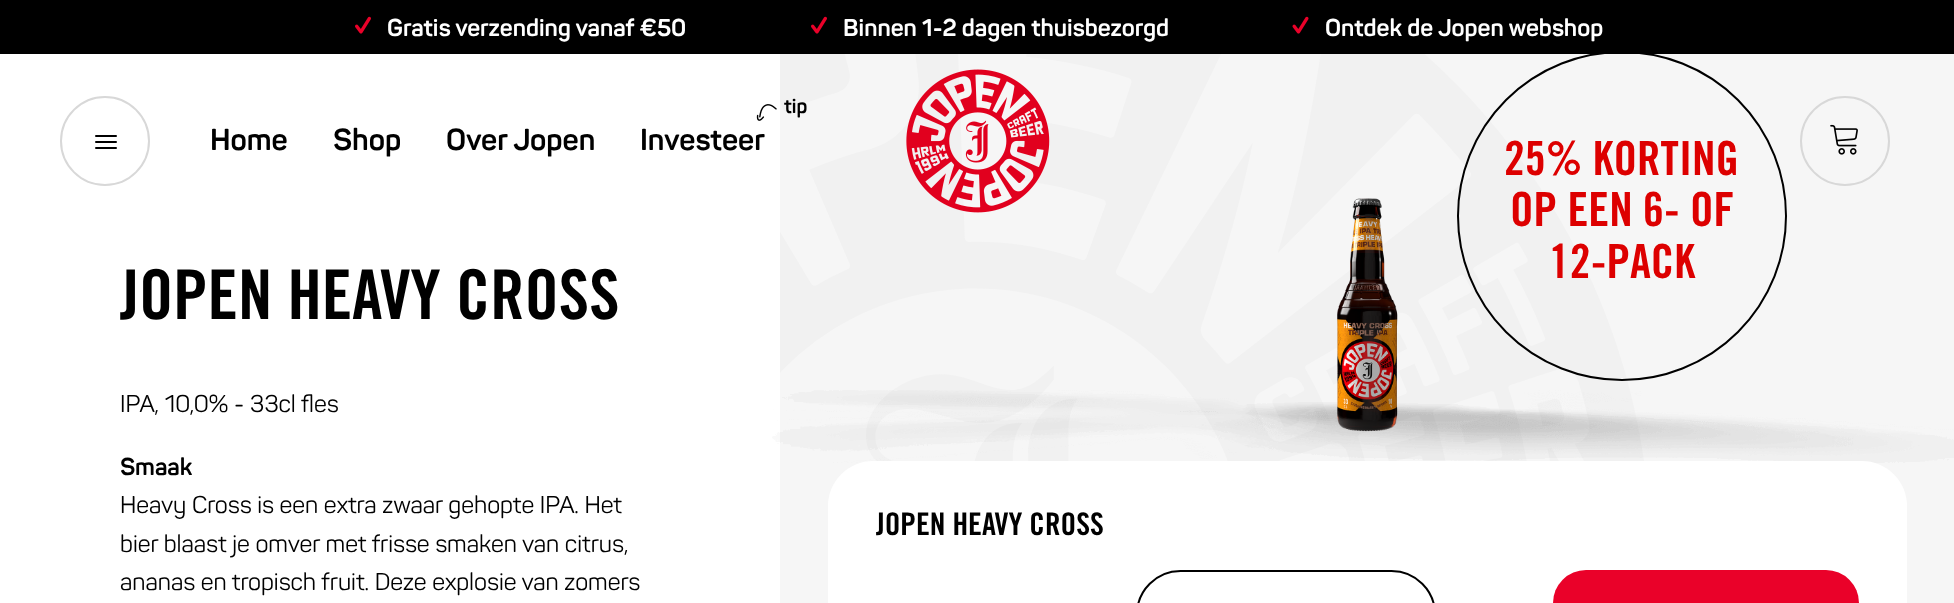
async function draw(canvas) {
	canvas.width = 1954;
	canvas.height = 603;
	const c = canvas.getContext('2d');
	c.miterLimit = 4;
	c.fontKerning = 'normal';
	async function loadImage(src) {
		const img = new Image();
		img.src = src;
		await img.decode();
		return img;
	}

	c.fillStyle = '#f6f6f6';
	c.fillRect(0, 0, 1954, 603);
	c.drawImage(await loadImage('img6.png'), 780, 54, 864, 407);
	c.beginPath();
	c.arc(1622, 216, 164, 0, 2 * Math.PI);
	c.strokeStyle = '#000';
	c.lineWidth = 2;
	c.stroke();
	c.fillStyle = '#000';
	c.fillRect(0, 0, 1954, 54);
	c.drawImage(await loadImage('img1.png'), 355, 16, 16, 18);
	c.font = 'bold 24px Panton';
	c.fillStyle = '#fff';
	c.fillText('Gratis verzending vanaf €50', 387, 36);
	c.drawImage(await loadImage('img1.png'), 811, 16, 16, 18);
	c.fillText('Binnen 1-2 dagen thuisbezorgd', 843, 36);
	c.drawImage(await loadImage('img2.png'), 1292, 16, 17, 18);
	c.fillText('Ontdek de Jopen webshop', 1325, 36);
	c.fillRect(0, 54, 780, 549);
	c.beginPath();
	c.arc(105, 141, 44, 0, 2 * Math.PI);
	c.strokeStyle = '#d8d8d8';
	c.stroke();
	c.fillStyle = '#000';
	c.beginPath();
	c.roundRect(95, 135, 22, 2, 1);
	c.fill();
	c.beginPath();
	c.roundRect(95, 141, 22, 2, 1);
	c.fill();
	c.beginPath();
	c.roundRect(95, 147, 22, 2, 1);
	c.fill();
	c.font = 'bold 30px Panton';
	for (const [text, x, y] of [
		['Home', 210, 150],
		['Shop', 333, 150],
		['Over Jopen', 446, 150],
	]) {
		c.fillText(text, x, y);
	}
	c.drawImage(await loadImage('img3.png'), 756, 104, 21, 17);
	c.font = 'bold 20px Panton';
	c.fillText('tip', 784, 113);
	c.font = 'bold 30px Panton';
	c.fillText('Investeer', 640, 150);
	c.drawImage(await loadImage('img4.png'), 906, 69, 144, 144);
	c.beginPath();
	c.arc(1845, 141, 44, 0, 2 * Math.PI);
	c.stroke();
	c.drawImage(await loadImage('img5.png'), 1830, 124, 28, 31);
	c.font = 'bold 68.5px Trade Gothic';
	c.fillText('JOPEN HEAVY CROSS', 120, 319);
	c.font = '24px Panton';
	c.fillText('IPA, 10,0% - 33cl fles', 120, 412);
	c.font = 'bold 24px Panton';
	c.fillText('Smaak', 120, 475);
	c.font = '24px Panton';
	for (const [text, x, y] of [
		['Heavy Cross is een extra zwaar gehopte IPA. Het', 120, 513],
		['bier blaast je omver met frisse smaken van citrus,', 120, 552],
		['ananas en tropisch fruit. Deze explosie van zomers', 120, 590],
	]) {
		c.fillText(text, x, y);
	}
	c.drawImage(await loadImage('img8.png'), 772, 390, 1182, 73);
	c.drawImage(await loadImage('img7.png'), 1337, 198, 61, 234);
	c.font = 'bold 47px Trade Gothic';
	c.fillStyle = '#d00';
	for (const [text, x, y] of [
		['25% KORTING', 1504, 175],
		['OP EEN 6- OF', 1510, 226],
		['12-PACK', 1549, 278],
	]) {
		c.fillText(text, x, y);
	}
	c.fillStyle = '#fff';
	c.beginPath();
	c.roundRect(828, 461, 1079, 142, [45, 45, 0, 0]);
	c.fill();
	c.font = 'bold 31.25px Trade Gothic';
	c.fillStyle = '#000';
	c.fillText('JOPEN HEAVY CROSS', 876, 535);
	c.beginPath();
	c.roundRect(1137, 571, 298, 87, 53);
	c.strokeStyle = '#000';
	c.stroke();
	c.fillStyle = '#ea0129';
	c.beginPath();
	c.roundRect(1553, 570, 306, 33, [54, 54, 0, 0]);
	c.fill();
}

draw(document.querySelector('canvas'));
